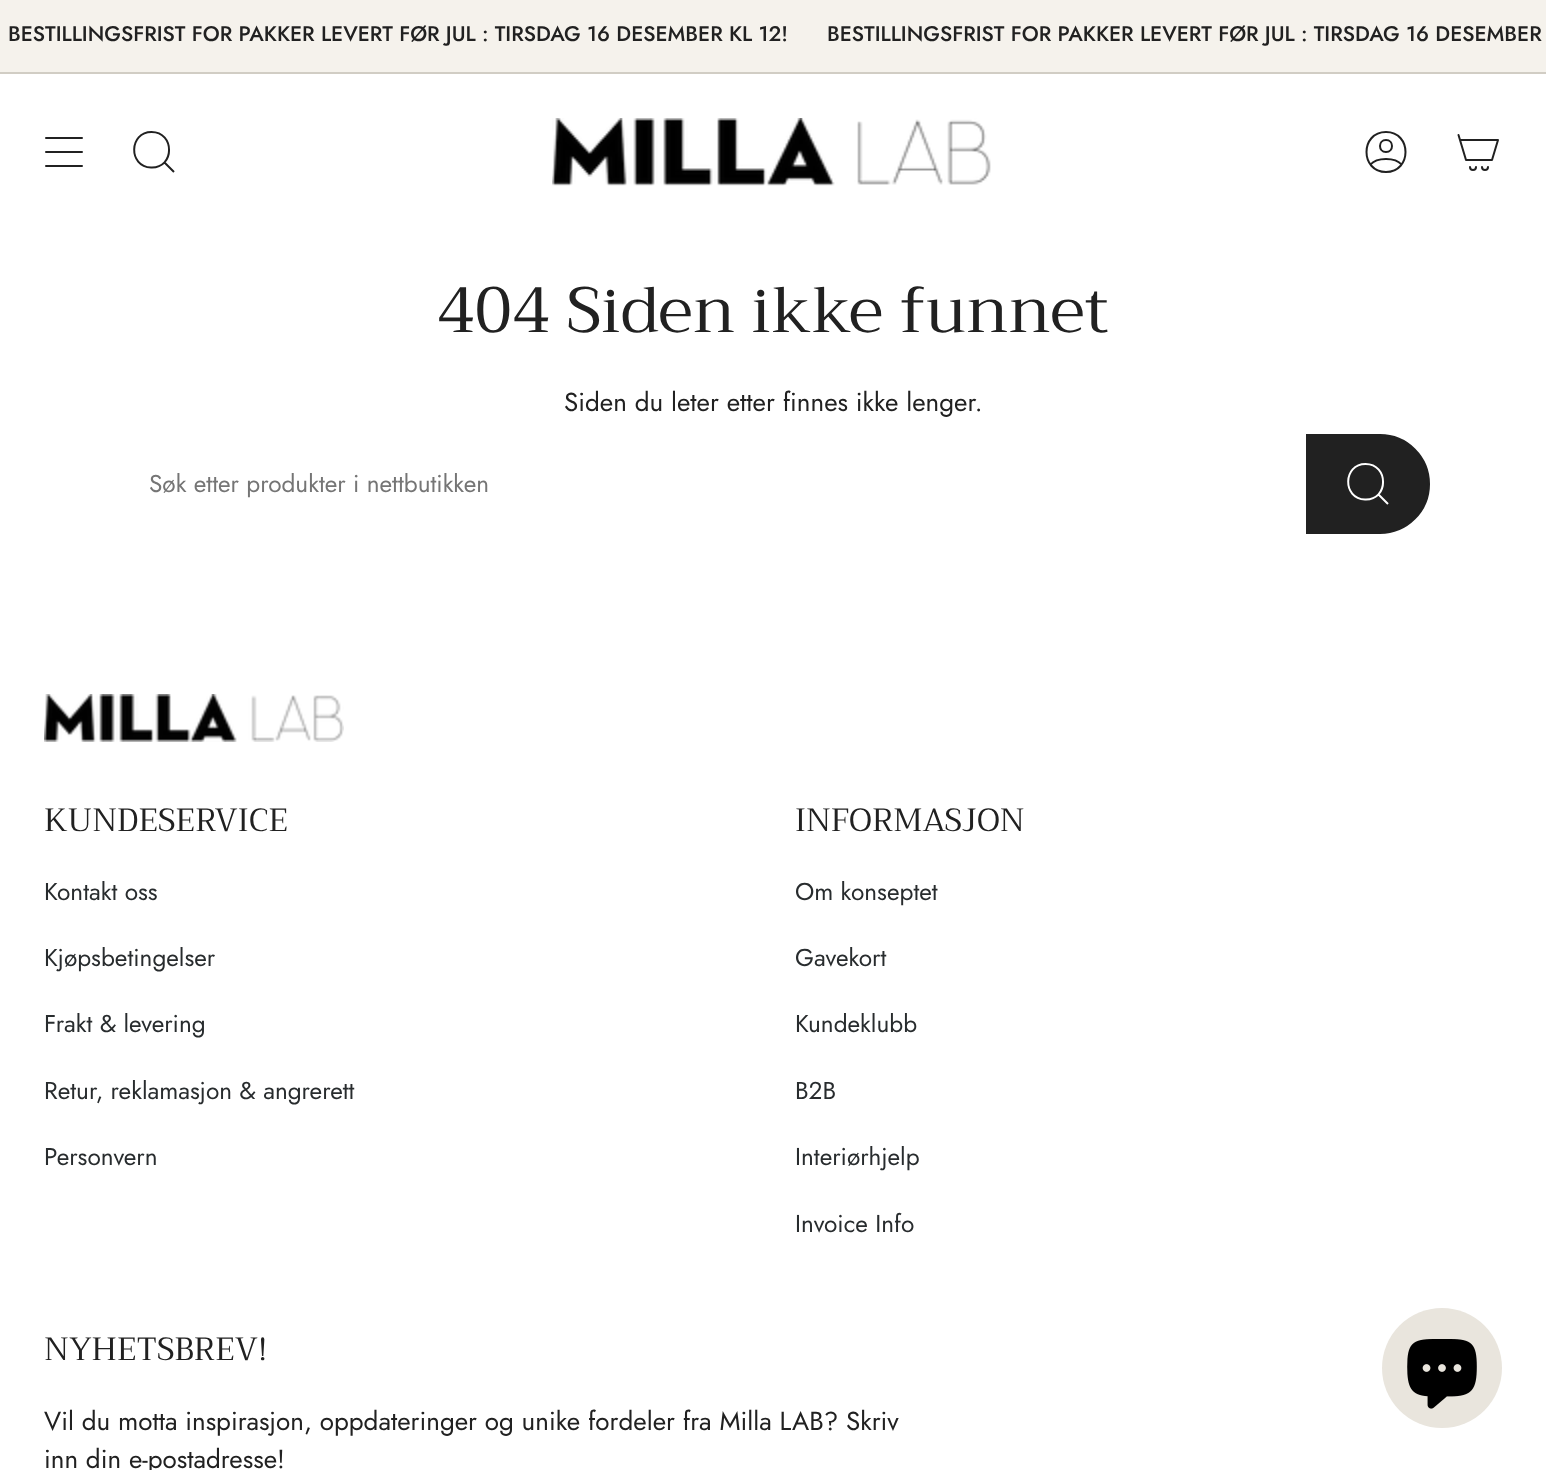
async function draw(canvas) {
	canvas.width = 1546;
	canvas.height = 1470;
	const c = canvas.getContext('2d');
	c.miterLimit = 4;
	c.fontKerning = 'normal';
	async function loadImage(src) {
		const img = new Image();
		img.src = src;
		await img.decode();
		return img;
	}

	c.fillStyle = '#fff';
	c.fillRect(0, 0, 1546, 1470);
	c.fillStyle = '#f5f2ec';
	c.fillRect(0, 0, 1546, 72);
	c.fillStyle = '#d1cdc4';
	c.fillRect(0, 72, 1546, 2);
	c.wordSpacing = '-0.1px';
	c.font = '500 21.15px Jost';
	c.fillStyle = '#212121';
	c.fillText('BESTILLINGSFRIST FOR PAKKER LEVERT FØR JUL : TIRSDAG 16 DESEMBER KL 12!', 8, 41);
	c.fillText('BESTILLINGSFRIST FOR PAKKER LEVERT FØR JUL : TIRSDAG 16 DESEMBER', 827, 41);
	c.beginPath();
	c.moveTo(46, 138);
	c.lineTo(82, 138);
	c.moveTo(46, 152);
	c.lineTo(82, 152);
	c.moveTo(46, 166);
	c.lineTo(82, 166);
	c.strokeStyle = '#212121';
	c.lineWidth = 2;
	c.lineCap = 'round';
	c.lineJoin = 'round';
	c.stroke();
	c.beginPath();
	c.moveTo(151.5, 132);
	c.bezierCurveTo(175, 132, 175, 168.5, 151, 167.5);
	c.bezierCurveTo(128, 166.5, 129, 132, 151.5, 132);
	c.closePath();
	c.moveTo(164, 162);
	c.lineTo(174, 172);
	c.lineCap = 'butt';
	c.lineJoin = 'miter';
	c.stroke();
	c.drawImage(await loadImage('img1.png'), 552, 118, 439, 68);
	c.beginPath();
	c.moveTo(1386, 132);
	c.bezierCurveTo(1360, 132, 1360, 172, 1386, 172);
	c.bezierCurveTo(1412, 172, 1412, 132, 1386, 132);
	c.closePath();
	c.moveTo(1370.5, 164.5);
	c.bezierCurveTo(1376.5, 157, 1395.5, 157, 1401.5, 164.5);
	c.moveTo(1386, 152);
	c.bezierCurveTo(1394, 152, 1394, 140, 1386, 140);
	c.bezierCurveTo(1378, 140, 1378, 152, 1386, 152);
	c.closePath();
	c.lineCap = 'round';
	c.lineJoin = 'round';
	c.stroke();
	c.beginPath();
	c.moveTo(1460, 140);
	c.lineTo(1498, 140);
	c.lineTo(1492, 160);
	c.lineTo(1466, 160);
	c.closePath();
	c.moveTo(1460, 140);
	c.lineTo(1458.5, 135);
	c.moveTo(1476, 167);
	c.bezierCurveTo(1476, 171, 1470, 171, 1470, 167);
	c.moveTo(1488, 167);
	c.bezierCurveTo(1488, 171, 1482, 171, 1482, 167);
	c.stroke();
	c.wordSpacing = '0px';
	c.font = '64px Trirong';
	c.fillText('404 Siden ikke funnet', 437, 332);
	c.font = '26px Jost';
	c.fillText('Siden du leter etter finnes ikke lenger.', 564, 411);
	c.font = '24.4px Jost';
	c.fillStyle = '#757575';
	c.fillText('Søk etter produkter i nettbutikken', 149, 492);
	c.fillStyle = '#212121';
	c.beginPath();
	c.roundRect(1307, 435, 122, 98, [0, 49, 49, 0]);
	c.fill();
	c.lineJoin = 'miter';
	c.stroke();
	c.beginPath();
	c.moveTo(1365.5, 464);
	c.bezierCurveTo(1389, 464, 1389, 500.5, 1365, 499.5);
	c.bezierCurveTo(1342, 498.5, 1343, 464, 1365.5, 464);
	c.closePath();
	c.moveTo(1378, 494);
	c.lineTo(1388, 504);
	c.strokeStyle = '#fff';
	c.lineCap = 'butt';
	c.stroke();
	c.drawImage(await loadImage('img2.png'), 44, 694, 300, 48);
	c.font = '32px Trirong';
	c.fillText('KUNDESERVICE', 44, 831);
	c.font = '24.4px Jost';
	c.fillStyle = '#282c2e';
	for (const [text, x, y] of [
		['Kontakt oss', 44, 900],
		['Kjøpsbetingelser', 44, 966],
		['Frakt & levering', 44, 1032],
		['Retur, reklamasjon & angrerett', 44, 1099],
		['Personvern', 44, 1165],
	]) {
		c.fillText(text, x, y);
	}
	c.font = '32px Trirong';
	c.fillStyle = '#212121';
	c.fillText('INFORMASJON', 795, 831);
	c.font = '24.4px Jost';
	c.fillStyle = '#282c2e';
	for (const [text, x, y] of [
		['Om konseptet', 795, 900],
		['Gavekort', 795, 966],
		['Kundeklubb', 795, 1032],
		['B2B', 795, 1099],
		['Interiørhjelp', 795, 1165],
		['Invoice Info', 795, 1232],
	]) {
		c.fillText(text, x, y);
	}
	c.font = '32px Trirong';
	c.fillStyle = '#212121';
	c.fillText('NYHETSBREV!', 44, 1360);
	c.font = '26px Jost';
	c.fillText('Vil du motta inspirasjon, oppdateringer og unike fordeler fra Milla LAB? Skriv', 44, 1430);
	c.fillText('inn din e-postadresse!', 44, 1468);
	c.fillStyle = '#e9e5dd';
	c.beginPath();
	c.arc(1442, 1368, 60, 0, 2 * Math.PI);
	c.fill();
	c.drawImage(await loadImage('img3.png'), 1407, 1339, 70, 70);
}

draw(document.querySelector('canvas'));
